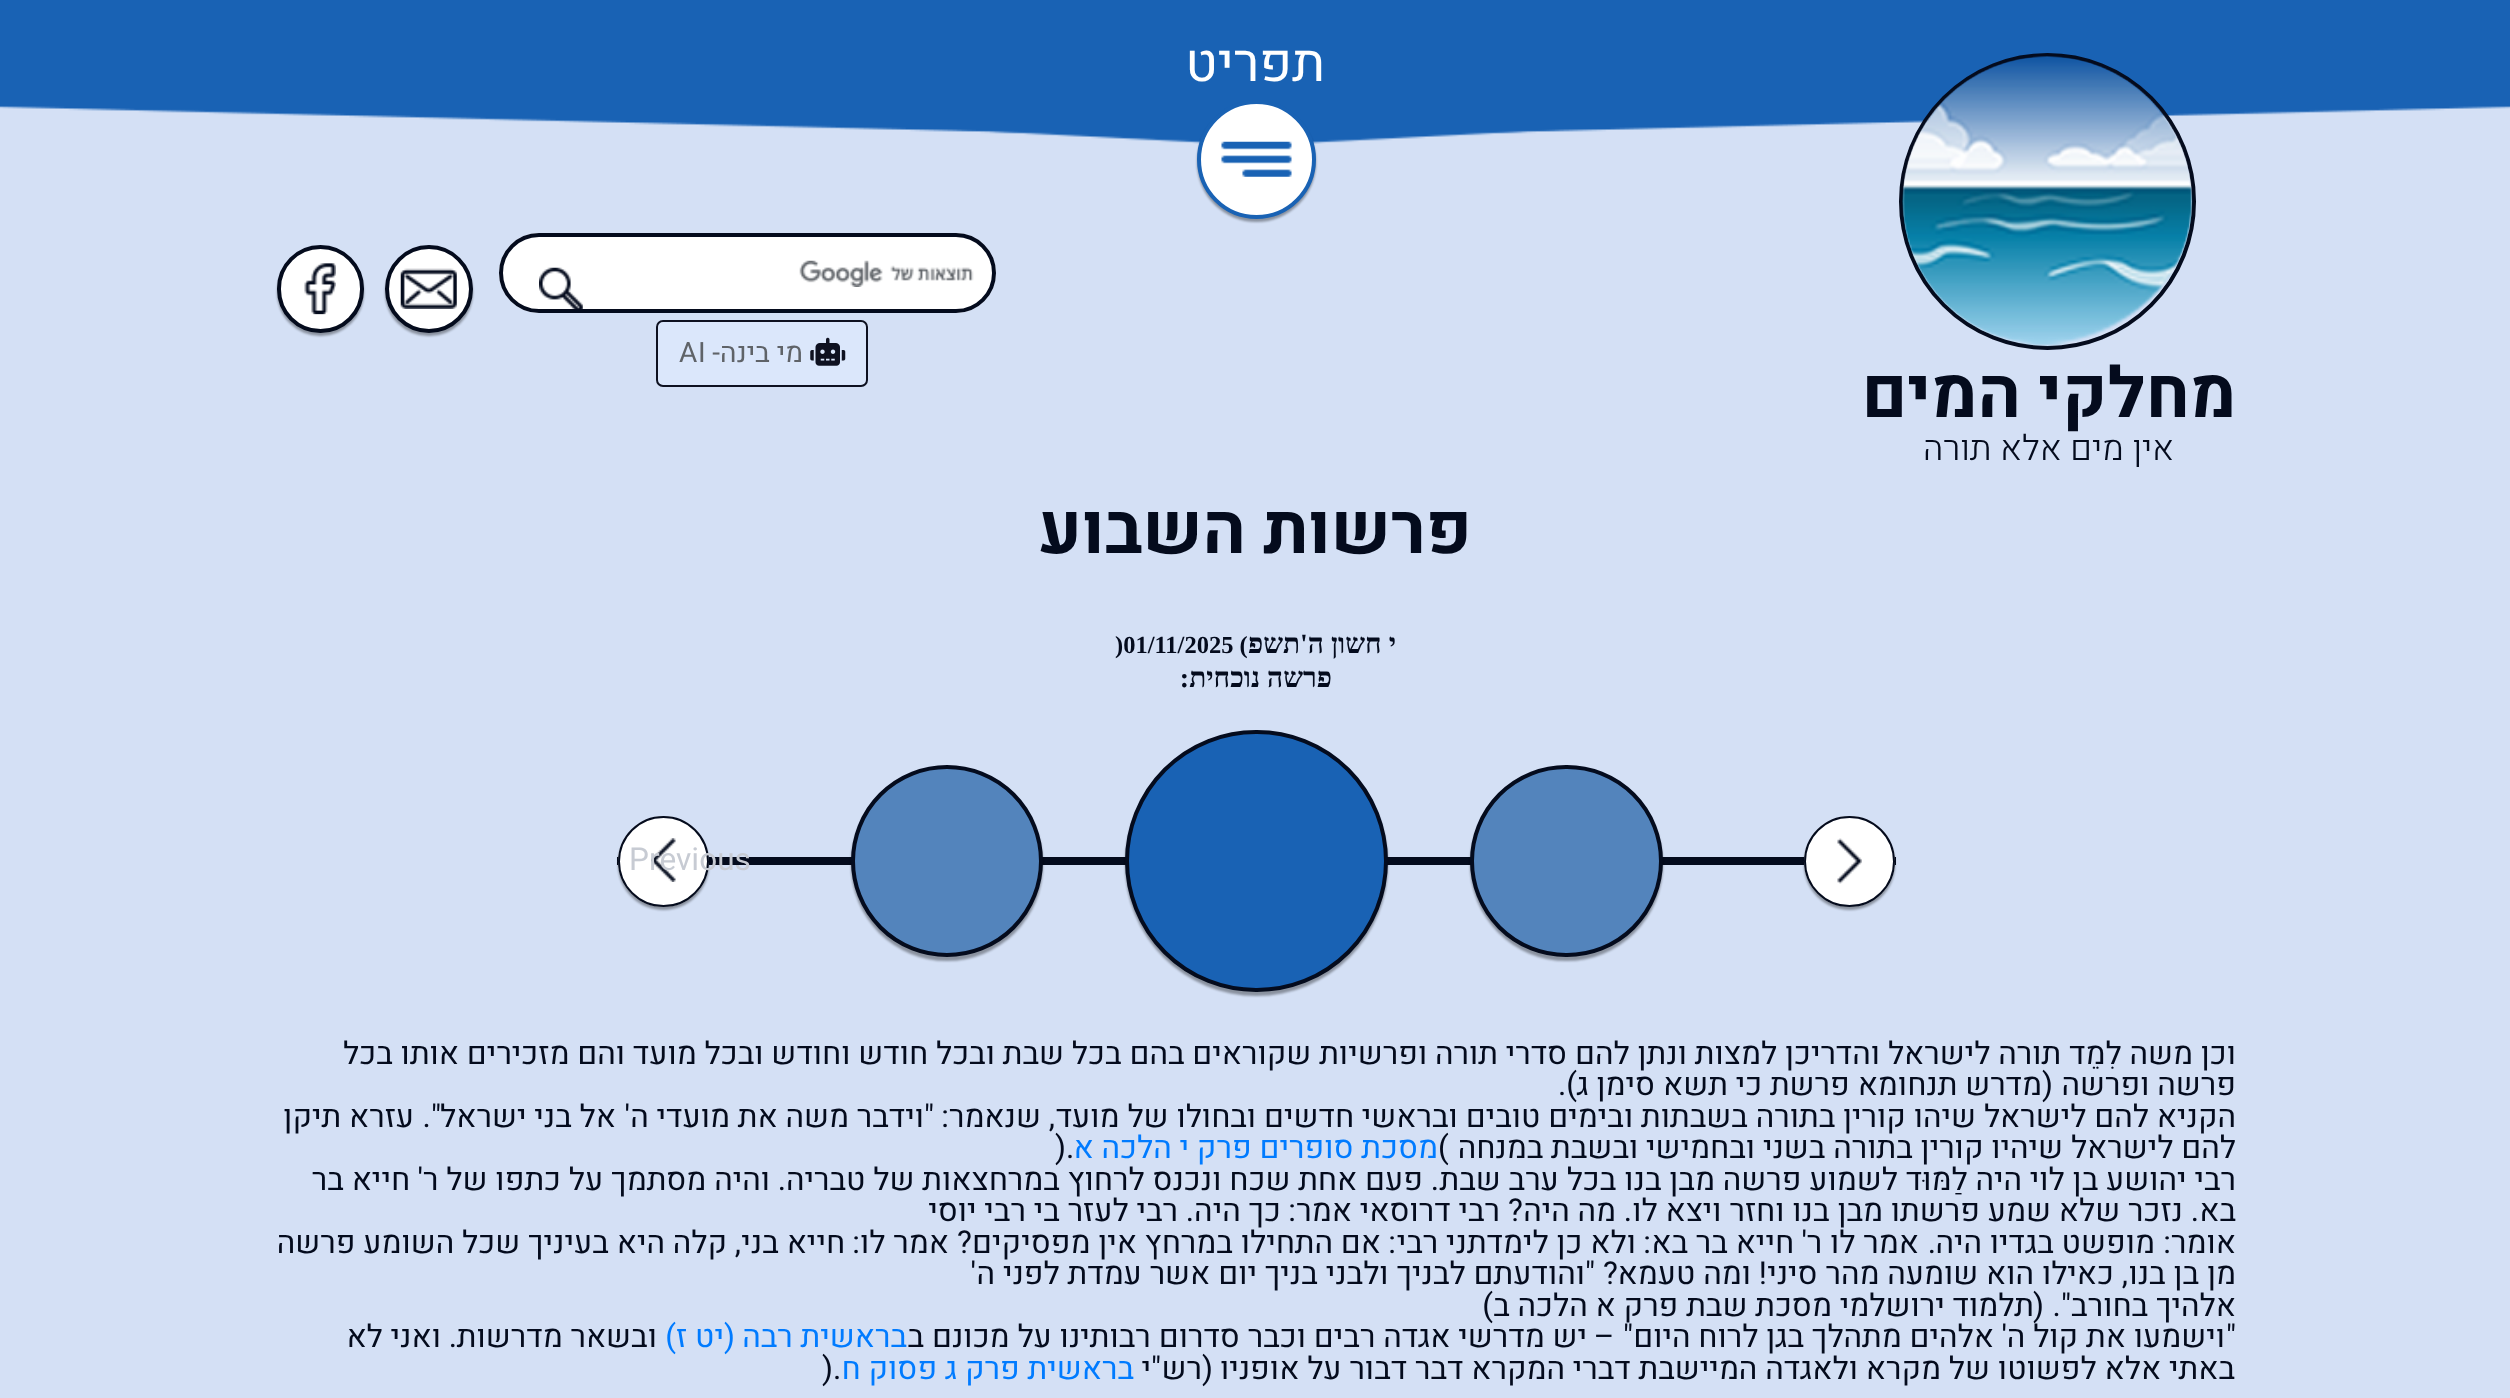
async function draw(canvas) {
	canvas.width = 2510;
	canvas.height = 1398;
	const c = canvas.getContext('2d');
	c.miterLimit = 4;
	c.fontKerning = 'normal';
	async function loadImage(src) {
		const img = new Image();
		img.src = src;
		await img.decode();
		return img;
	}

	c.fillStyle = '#d4e0f5';
	c.fillRect(0, 0, 2510, 1398);
	c.drawImage(await loadImage('img1.png'), 0, 0, 2510, 144);
	c.direction = 'rtl';
	c.font = '52.5px Heebo';
	c.fillStyle = '#fff';
	c.fillText('תפריט', 1325, 81);
	c.fillStyle = '#00000059';
	c.filter = 'blur(1px)';
	c.beginPath();
	c.roundRect(1197, 103, 119, 119, 59.5);
	c.fill();
	c.filter = 'none';
	c.fillStyle = '#fff';
	c.beginPath();
	c.arc(1256.5, 159.5, 57.5, 0, 2 * Math.PI);
	c.fill();
	c.strokeStyle = '#1962b4';
	c.lineWidth = 4;
	c.stroke();
	c.drawImage(await loadImage('img2.png'), 1221, 141, 71, 36);
	c.fillStyle = '#00000059';
	c.filter = 'blur(1px)';
	c.beginPath();
	c.roundRect(385, 249, 88, 87, 43.5);
	c.fill();
	c.filter = 'none';
	c.fillStyle = '#fff';
	c.beginPath();
	c.arc(429, 289, 42, 0, 2 * Math.PI);
	c.fill();
	c.strokeStyle = '#040b1d';
	c.stroke();
	c.drawImage(await loadImage('img3.png'), 400, 268, 57, 41);
	c.fillStyle = '#00000059';
	c.filter = 'blur(1px)';
	c.beginPath();
	c.roundRect(277, 249, 87, 87, 43.5);
	c.fill();
	c.filter = 'none';
	c.fillStyle = '#fff';
	c.beginPath();
	c.roundRect(279, 247, 83, 84, 41.5);
	c.fill();
	c.stroke();
	c.drawImage(await loadImage('img4.png'), 304, 263, 32, 52);
	c.beginPath();
	c.roundRect(499, 233, 497, 80, 40);
	c.fill();
	c.drawImage(await loadImage('img5.png'), 799, 260, 175, 27);
	c.beginPath();
	c.roundRect(501, 235, 493, 76, 38);
	c.stroke();
	c.drawImage(await loadImage('img6.png'), 539, 267, 44, 42);
	c.fillStyle = '#dbe7fb';
	c.beginPath();
	c.roundRect(657, 321, 210, 65, 6);
	c.fill();
	c.strokeStyle = '#0e1120';
	c.lineWidth = 2;
	c.stroke();
	c.drawImage(await loadImage('img7.png'), 810, 337, 36, 29);
	c.font = '28px Heebo';
	c.fillStyle = '#5f6368';
	c.fillText('מי בינה-', 803, 362);
	c.direction = 'ltr';
	c.font = '28px "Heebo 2"';
	c.fillText('I', 698, 362);
	c.font = '28px Heebo';
	c.fillText('A', 679, 362);
	c.beginPath();
	c.arc(2047.5, 201.5, 146.5, 0, 2 * Math.PI);
	c.strokeStyle = '#040b1d';
	c.lineWidth = 4;
	c.stroke();
	c.drawImage(await loadImage('img8.png'), 1902, 56, 291, 291);
	c.direction = 'rtl';
	c.font = 'bold 70px Heebo';
	c.fillStyle = '#040b1d';
	c.fillText('מחלקי המים', 2236, 417);
	c.font = '300 35px Heebo';
	c.fillText('אין מים אלא תורה', 2174, 460);
	c.font = 'bold 70px Heebo';
	c.fillText('פרשות השבוע', 1472, 553);
	c.font = 'bold 28px Liberation Serif';
	c.fillText('י חשון ה\'תשפ', 1396, 653);
	c.direction = 'ltr';
	c.font = 'bold 24.5px Liberation Serif';
	c.fillText(')01/11/2025 (', 1115, 653);
	c.direction = 'rtl';
	c.font = 'bold 28px Liberation Serif';
	c.fillText('פרשה נוכחית:', 1332, 687);
	c.fillRect(617, 857, 1279, 8);
	c.fillStyle = '#00000059';
	c.filter = 'blur(1px)';
	c.beginPath();
	c.roundRect(1804, 819, 91, 91, 45.5);
	c.fill();
	c.filter = 'none';
	c.fillStyle = '#fff';
	c.beginPath();
	c.arc(1849.5, 861.5, 45.5, 0, 2 * Math.PI);
	c.fill();
	c.drawImage(await loadImage('img9.png'), 1837, 838, 25, 46);
	c.beginPath();
	c.arc(1849.5, 861.5, 44.5, 0, 2 * Math.PI);
	c.lineWidth = 2;
	c.stroke();
	c.fillStyle = '#00000059';
	c.filter = 'blur(1px)';
	c.beginPath();
	c.roundRect(1470, 768, 193, 193, 96.5);
	c.fill();
	c.filter = 'none';
	c.fillStyle = '#5384bc';
	c.beginPath();
	c.roundRect(1472, 767, 189, 188, 94);
	c.fill();
	c.lineWidth = 4;
	c.stroke();
	c.fillStyle = '#00000059';
	c.filter = 'blur(1px)';
	c.beginPath();
	c.roundRect(1125, 733, 263, 263, 131.5);
	c.fill();
	c.filter = 'none';
	c.fillStyle = '#1962b4';
	c.beginPath();
	c.roundRect(1127, 732, 259, 258, 129);
	c.fill();
	c.stroke();
	c.fillStyle = '#00000059';
	c.filter = 'blur(1px)';
	c.beginPath();
	c.roundRect(851, 768, 192, 193, 96);
	c.fill();
	c.filter = 'none';
	c.fillStyle = '#5384bc';
	c.beginPath();
	c.arc(947, 861, 94, 0, 2 * Math.PI);
	c.fill();
	c.stroke();
	c.fillStyle = '#00000059';
	c.filter = 'blur(1px)';
	c.beginPath();
	c.roundRect(618, 819, 91, 91, 45.5);
	c.fill();
	c.filter = 'none';
	c.fillStyle = '#fff';
	c.beginPath();
	c.arc(663.5, 861.5, 45.5, 0, 2 * Math.PI);
	c.fill();
	c.drawImage(await loadImage('img10.png'), 651, 838, 25, 44);
	c.beginPath();
	c.arc(663.5, 861.5, 44.5, 0, 2 * Math.PI);
	c.lineWidth = 2;
	c.stroke();
	c.direction = 'ltr';
	c.font = '31.5px "Heebo 2"';
	c.fillStyle = '#c7cbd3';
	c.fillText('Previous', 629, 870);
	c.direction = 'rtl';
	c.font = '31.5px Heebo';
	c.fillStyle = '#040b1d';
	c.fillText('וכן משה לִמֵד תורה לישראל והדריכן למצות ונתן להם סדרי תורה ופרשיות שקוראים בהם בכל שבת ובכל חודש וחודש ובכל מועד והם מזכירים אותו בכל', 2236, 1064);
	c.fillText('פרשה ופרשה', 2236, 1095);
	c.font = '31.5px "Heebo 2"';
	c.fillText('(', 2053, 1095);
	c.font = '31.5px Heebo';
	c.fillText('מדרש תנחומא פרשת כי תשא סימן ג', 2042, 1095);
	c.font = '31.5px "Heebo 2"';
	c.fillText(').', 1577, 1095);
	c.font = '31.5px Heebo';
	c.fillText('הקניא להם לישראל שיהו קורין בתורה בשבתות ובימים טובים ובראשי חדשים ובחולו של מועד', 2236, 1127);
	c.font = '31.5px "Heebo 2"';
	c.fillText(',', 1055, 1127);
	c.font = '31.5px Heebo';
	c.fillText('שנאמר', 1041, 1127);
	c.font = '31.5px "Heebo 2"';
	c.fillText(':', 949, 1127);
	c.fillText('"', 934, 1127);
	c.font = '31.5px Heebo';
	c.fillText('וידבר משה את מועדי ה', 924, 1127);
	c.font = '31.5px "Heebo 2"';
	c.fillText('\'', 630, 1127);
	c.font = '31.5px Heebo';
	c.fillText('אל בני ישראל', 616, 1127);
	c.font = '31.5px "Heebo 2"';
	c.fillText('".', 441, 1127);
	c.font = '31.5px Heebo';
	c.fillText('עזרא תיקן', 414, 1127);
	c.fillText('להם לישראל שיהיו קורין בתורה בשני ובחמישי ובשבת במנחה', 2236, 1158);
	c.direction = 'ltr';
	c.font = '31.5px "Heebo 2"';
	c.fillText('(', 1438, 1158);
	c.direction = 'rtl';
	c.font = '31.5px Heebo';
	c.fillStyle = '#007bff';
	c.fillText('מסכת סופרים פרק י הלכה א', 1438, 1158);
	c.direction = 'ltr';
	c.font = '31.5px "Heebo 2"';
	c.fillStyle = '#040b1d';
	c.fillText(').', 1055, 1158);
	c.direction = 'rtl';
	c.font = '31.5px Heebo';
	c.fillText('רבי יהושע בן לוי היה לַמּוּד לשמוע פרשה מבן בנו בכל ערב שבת', 2236, 1190);
	c.font = '31.5px "Heebo 2"';
	c.fillText('.', 1439, 1190);
	c.font = '31.5px Heebo';
	c.fillText('פעם אחת שכח ונכנס לרחוץ במרחצאות של טבריה', 1423, 1190);
	c.font = '31.5px "Heebo 2"';
	c.fillText('.', 786, 1190);
	c.font = '31.5px Heebo';
	c.fillText('והיה מסתמך על כתפו של ר', 770, 1190);
	c.font = '31.5px "Heebo 2"';
	c.fillText('\'', 423, 1190);
	c.font = '31.5px Heebo';
	c.fillText('חייא בר', 410, 1190);
	c.fillText('בא', 2236, 1221);
	c.font = '31.5px "Heebo 2"';
	c.fillText('.', 2199, 1221);
	c.font = '31.5px Heebo';
	c.fillText('נזכר שלא שמע פרשתו מבן בנו וחזר ויצא לו', 2183, 1221);
	c.font = '31.5px "Heebo 2"';
	c.fillText('.', 1632, 1221);
	c.font = '31.5px Heebo';
	c.fillText('מה היה', 1616, 1221);
	c.font = '31.5px "Heebo 2"';
	c.fillText('?', 1523, 1221);
	c.font = '31.5px Heebo';
	c.fillText('רבי דרוסאי אמר', 1500, 1221);
	c.font = '31.5px "Heebo 2"';
	c.fillText(':', 1296, 1221);
	c.font = '31.5px Heebo';
	c.fillText('כך היה', 1281, 1221);
	c.font = '31.5px "Heebo 2"';
	c.fillText('.', 1194, 1221);
	c.font = '31.5px Heebo';
	c.fillText('רבי לעזר בי רבי יוסי', 1178, 1221);
	c.fillText('אומר', 2236, 1253);
	c.font = '31.5px "Heebo 2"';
	c.fillText(':', 2171, 1253);
	c.font = '31.5px Heebo';
	c.fillText('מופשט בגדיו היה', 2155, 1253);
	c.font = '31.5px "Heebo 2"';
	c.fillText('.', 1936, 1253);
	c.font = '31.5px Heebo';
	c.fillText('אמר לו ר', 1919, 1253);
	c.font = '31.5px "Heebo 2"';
	c.fillText('\'', 1807, 1253);
	c.font = '31.5px Heebo';
	c.fillText('חייא בר בא', 1794, 1253);
	c.font = '31.5px "Heebo 2"';
	c.fillText(':', 1651, 1253);
	c.font = '31.5px Heebo';
	c.fillText('ולא כן לימדתני רבי', 1636, 1253);
	c.font = '31.5px "Heebo 2"';
	c.fillText(':', 1396, 1253);
	c.font = '31.5px Heebo';
	c.fillText('אם התחילו במרחץ אין מפסיקים', 1381, 1253);
	c.font = '31.5px "Heebo 2"';
	c.fillText('?', 972, 1253);
	c.font = '31.5px Heebo';
	c.fillText('אמר לו', 949, 1253);
	c.font = '31.5px "Heebo 2"';
	c.fillText(':', 860, 1253);
	c.font = '31.5px Heebo';
	c.fillText('חייא בני', 845, 1253);
	c.font = '31.5px "Heebo 2"';
	c.fillText(',', 741, 1253);
	c.font = '31.5px Heebo';
	c.fillText('קלה היא בעיניך שכל השומע פרשה', 727, 1253);
	c.fillText('מן בן בנו', 2236, 1284);
	c.font = '31.5px "Heebo 2"';
	c.fillText(',', 2128, 1284);
	c.font = '31.5px Heebo';
	c.fillText('כאילו הוא שומעה מהר סיני', 2114, 1284);
	c.font = '31.5px "Heebo 2"';
	c.fillText('!', 1767, 1284);
	c.font = '31.5px Heebo';
	c.fillText('ומה טעמא', 1751, 1284);
	c.font = '31.5px "Heebo 2"';
	c.fillText('?', 1618, 1284);
	c.fillText('"', 1595, 1284);
	c.font = '31.5px Heebo';
	c.fillText('והודעתם לבניך ולבני בניך יום אשר עמדת לפני ה', 1585, 1284);
	c.font = '31.5px "Heebo 2"';
	c.fillText('\'', 976, 1284);
	c.font = '31.5px Heebo';
	c.fillText('אלהיך בחורב', 2236, 1316);
	c.font = '31.5px "Heebo 2"';
	c.fillText('".', 2071, 1316);
	c.fillText('(', 2044, 1316);
	c.font = '31.5px Heebo';
	c.fillText('תלמוד ירושלמי מסכת שבת פרק א הלכה ב', 2034, 1316);
	c.font = '31.5px "Heebo 2"';
	c.fillText(')', 1493, 1316);
	c.fillText('"', 2236, 1347);
	c.font = '31.5px Heebo';
	c.fillText('וישמעו את קול ה', 2225, 1347);
	c.font = '31.5px "Heebo 2"';
	c.fillText('\'', 2007, 1347);
	c.font = '31.5px Heebo';
	c.fillText('אלהים מתהלך בגן לרוח היום', 1994, 1347);
	c.font = '31.5px "Heebo 2"';
	c.fillText('"', 1633, 1347);
	c.font = '31.5px Heebo';
	c.fillText('יש מדרשי אגדה רבים וכבר סדרום רבותינו על מכונם', 1587, 1347);
	c.font = '31.5px "Heebo 2"';
	c.fillStyle = '#007bff';
	c.fillText('(', 735, 1347);
	c.fillText(')', 676, 1347);
	c.font = '31.5px Heebo';
	c.fillStyle = '#040b1d';
	c.fillText('ואני לא', 441, 1347);
	c.font = '31.5px "Heebo 2"';
	c.fillText('–', 1615, 1347);
	c.font = '31.5px Heebo';
	c.fillText('ב', 924, 1347);
	c.fillStyle = '#007bff';
	c.fillText('בראשית רבה', 907, 1347);
	c.fillText('יט ז', 724, 1347);
	c.fillStyle = '#040b1d';
	c.fillText('ובשאר מדרשות', 657, 1347);
	c.font = '31.5px "Heebo 2"';
	c.fillText('.', 457, 1347);
	c.font = '31.5px Heebo';
	c.fillText('באתי אלא לפשוטו של מקרא ולאגדה המיישבת דברי המקרא דבר דבור על אופניו', 2235, 1379);
	c.font = '31.5px "Heebo 2"';
	c.fillText('(', 1213, 1379);
	c.font = '31.5px Heebo';
	c.fillText('רש', 1202, 1379);
	c.font = '31.5px "Heebo 2"';
	c.fillText('"', 1161, 1379);
	c.font = '31.5px Heebo';
	c.fillText('י', 1151, 1379);
	c.fillStyle = '#007bff';
	c.fillText('בראשית פרק ג פסוק ח', 1134, 1379);
	c.direction = 'ltr';
	c.font = '31.5px "Heebo 2"';
	c.fillStyle = '#040b1d';
	c.fillText(').', 822, 1379);
}

draw(document.querySelector('canvas'));
